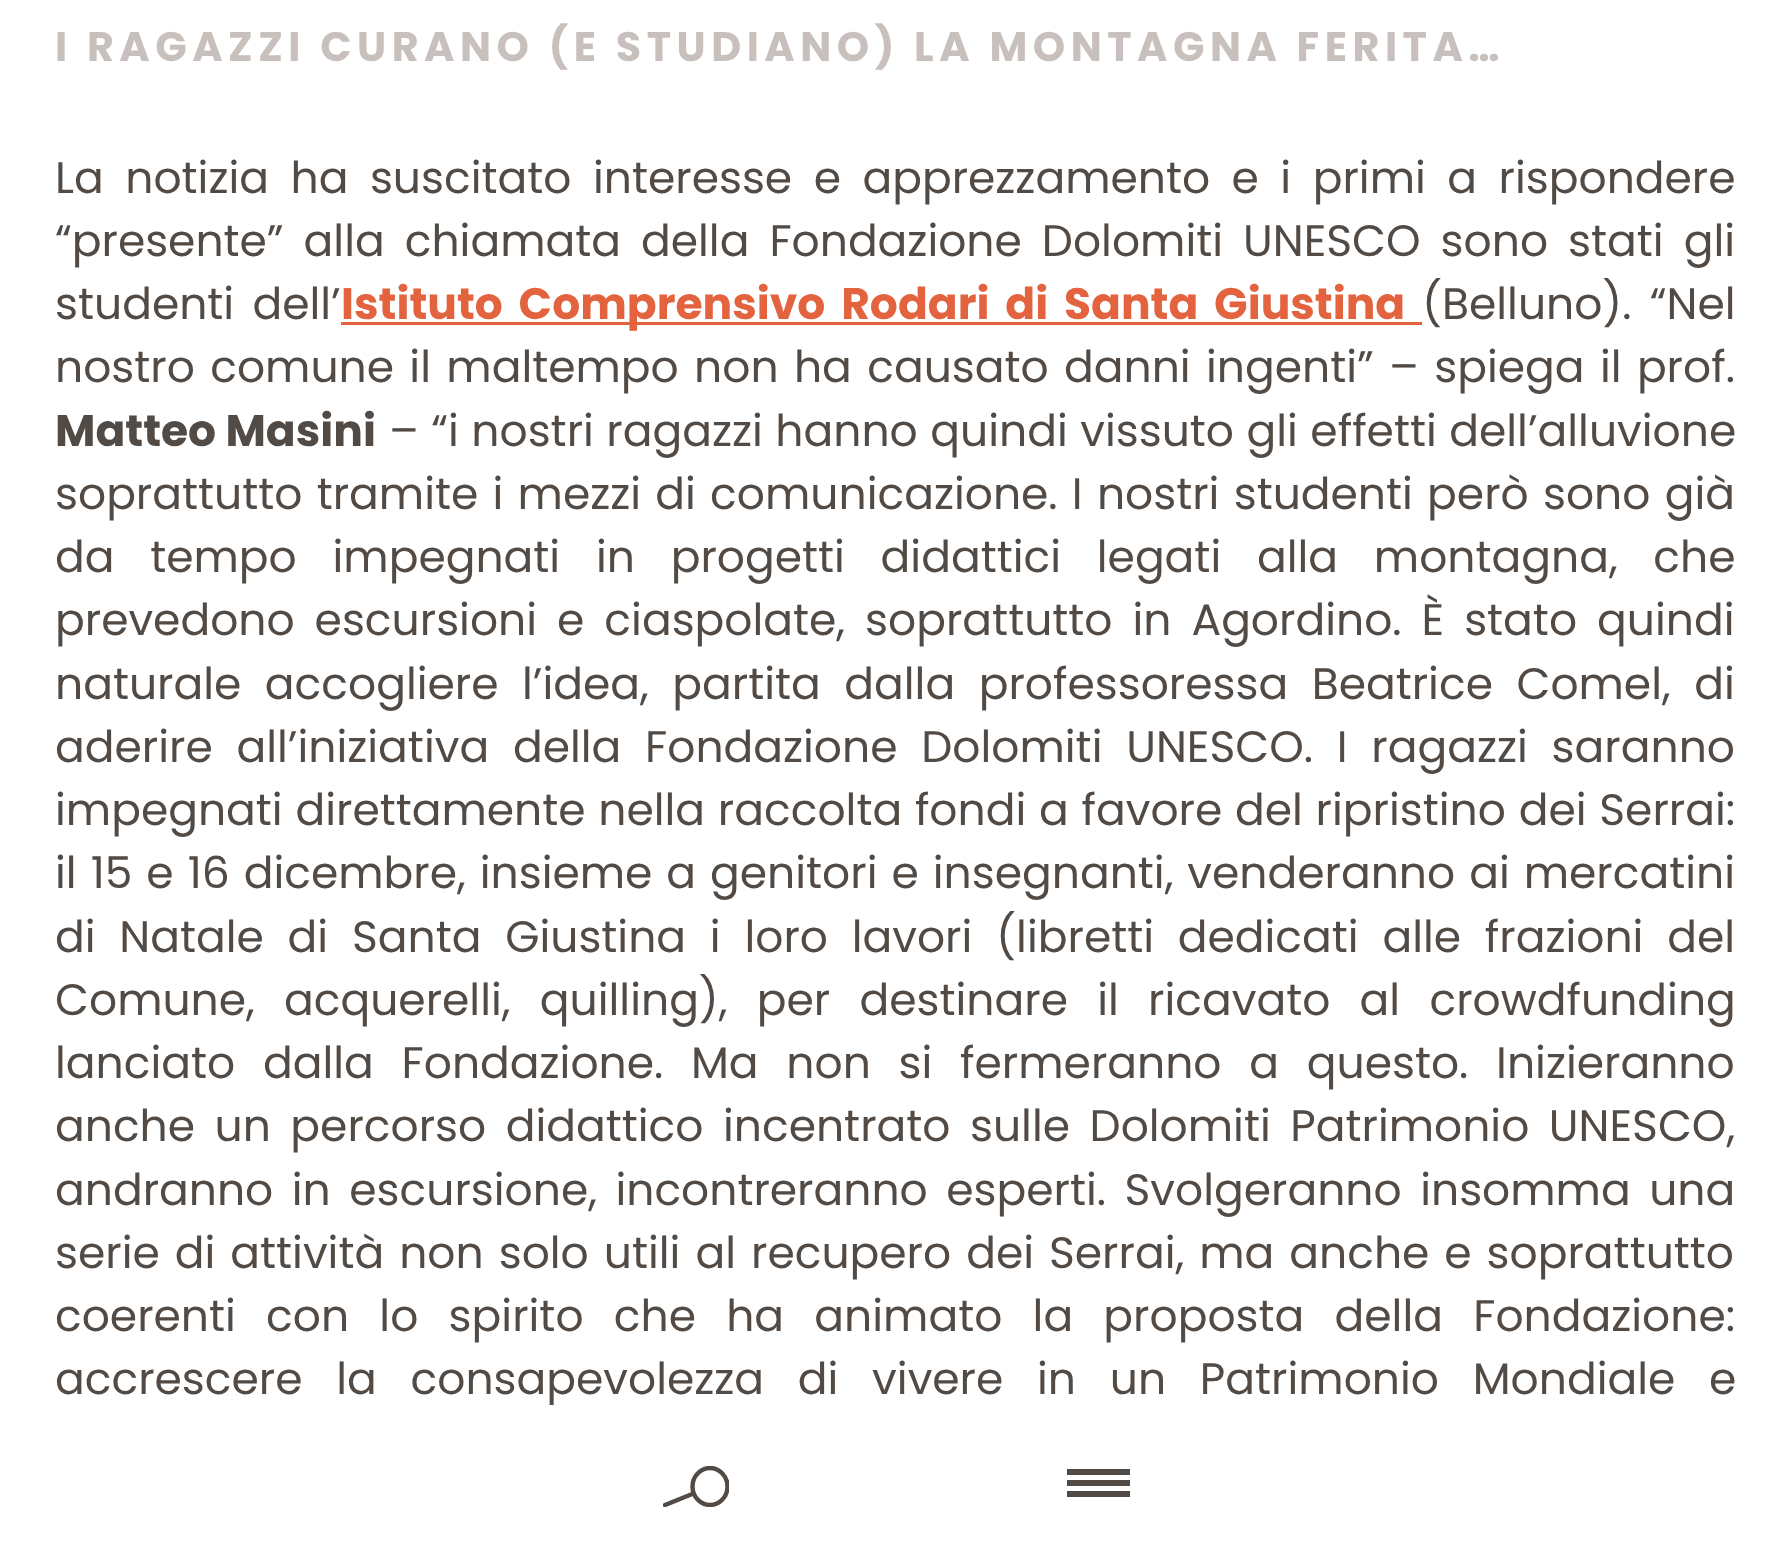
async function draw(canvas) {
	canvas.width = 1788;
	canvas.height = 1555;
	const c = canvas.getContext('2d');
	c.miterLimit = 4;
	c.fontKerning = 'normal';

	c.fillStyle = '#fff';
	c.fillRect(0, 0, 1788, 1555);
	c.letterSpacing = '5.5px';
	c.font = 'bold 41.25px Poppins';
	c.fillStyle = '#c8c0bc';
	c.fillText('I RAGAZZI CURANO (E STUDIANO) LA MONTAGNA FERITA…', 55, 61);
	c.letterSpacing = '0px';
	c.wordSpacing = '9.75px';
	c.font = '44px Poppins';
	c.fillStyle = '#514a45';
	c.fillText('La notizia ha suscitato interesse e apprezzamento e i primi a rispondere', 55, 193);
	c.wordSpacing = '8.25px';
	c.fillText('“presente” alla chiamata della Fondazione Dolomiti UNESCO sono stati gli', 55, 256);
	c.wordSpacing = '6.5px';
	c.fillText('studenti dell’', 55, 319);
	c.fillStyle = '#e2633e';
	c.fillRect(341, 322, 1081, 3);
	c.font = 'bold 44px Poppins';
	c.fillText('Istituto Comprensivo Rodari di Santa Giustina', 341, 319);
	c.font = '44px Poppins';
	c.fillStyle = '#514a45';
	c.fillText('(Belluno). “Nel', 1422, 319);
	c.wordSpacing = '3.6px';
	c.fillText('nostro comune il maltempo non ha causato danni ingenti” – spiega il prof.', 55, 382);
	c.wordSpacing = '0px';
	c.font = 'bold 44px Poppins';
	c.fillText('Matteo Masini', 55, 446);
	c.wordSpacing = '0.75px';
	c.font = '44px Poppins';
	c.fillText('– “i nostri ragazzi hanno quindi vissuto gli effetti dell’alluvione', 389, 446);
	c.wordSpacing = '2.5px';
	c.fillText('soprattutto tramite i mezzi di comunicazione. I nostri studenti però sono già', 55, 509);
	c.wordSpacing = '24px';
	c.fillText('da tempo impegnati in progetti didattici legati alla montagna, che', 55, 572);
	c.wordSpacing = '8.25px';
	c.fillText('prevedono escursioni e ciaspolate, soprattutto in Agordino. È stato quindi', 55, 635);
	c.wordSpacing = '11.75px';
	c.fillText('naturale accogliere l’idea, partita dalla professoressa Beatrice Comel, di', 55, 699);
	c.wordSpacing = '12px';
	c.fillText('aderire all’iniziativa della Fondazione Dolomiti UNESCO. I ragazzi saranno', 55, 762);
	c.wordSpacing = '1px';
	c.fillText('impegnati direttamente nella raccolta fondi a favore del ripristino dei Serrai:', 55, 825);
	c.wordSpacing = '2.25px';
	c.fillText('il 15 e 16 dicembre, insieme a genitori e insegnanti, venderanno ai mercatini', 55, 888);
	c.wordSpacing = '12px';
	c.fillText('di Natale di Santa Giustina i loro lavori (libretti dedicati alle frazioni del', 55, 952);
	c.wordSpacing = '17.5px';
	c.fillText('Comune, acquerelli, quilling), per destinare il ricavato al crowdfunding', 55, 1015);
	c.wordSpacing = '16px';
	c.fillText('lanciato dalla Fondazione. Ma non si fermeranno a questo. Inizieranno', 55, 1078);
	c.wordSpacing = '7.75px';
	c.fillText('anche un percorso didattico incentrato sulle Dolomiti Patrimonio UNESCO,', 55, 1141);
	c.wordSpacing = '6.75px';
	c.fillText('andranno in escursione, incontreranno esperti. Svolgeranno insomma una', 55, 1205);
	c.wordSpacing = '3.25px';
	c.fillText('serie di attività non solo utili al recupero dei Serrai, ma anche e soprattutto', 55, 1268);
	c.wordSpacing = '18.5px';
	c.fillText('coerenti con lo spirito che ha animato la proposta della Fondazione:', 55, 1331);
	c.wordSpacing = '22px';
	c.fillText('accrescere la consapevolezza di vivere in un Patrimonio Mondiale e', 55, 1394);
	c.fillStyle = '#fff';
	c.beginPath();
	c.moveTo(83, 1405);
	c.lineTo(1707, 1405);
	c.bezierCurveTo(1753, 1405, 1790, 1442, 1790, 1488);
	c.lineTo(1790, 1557);
	c.lineTo(0, 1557);
	c.lineTo(0, 1488);
	c.bezierCurveTo(0, 1442, 37, 1405, 83, 1405);
	c.closePath();
	c.fill();
	c.save();
	c.beginPath();
	c.rect(663, 1466, 66, 41);
	c.clip();
	c.beginPath();
	c.ellipse(710, 1486.5, 17.5, 18.5, 0, 0, 2 * Math.PI);
	c.strokeStyle = '#514a45';
	c.lineWidth = 4.4;
	c.stroke();
	c.beginPath();
	c.moveTo(693.5, 1493.5);
	c.lineTo(665, 1505);
	c.lineCap = 'round';
	c.stroke();
	c.restore();
	for (const [x, y, w, h, color] of [
		[1067, 1480, 63, 6, '#514a45'],
		[1067, 1469, 63, 6, '#514a45'],
		[1067, 1491, 63, 6, '#514a45'],
	]) {
		c.fillStyle = color;
		c.fillRect(x, y, w, h);
	}
}

draw(document.querySelector('canvas'));
